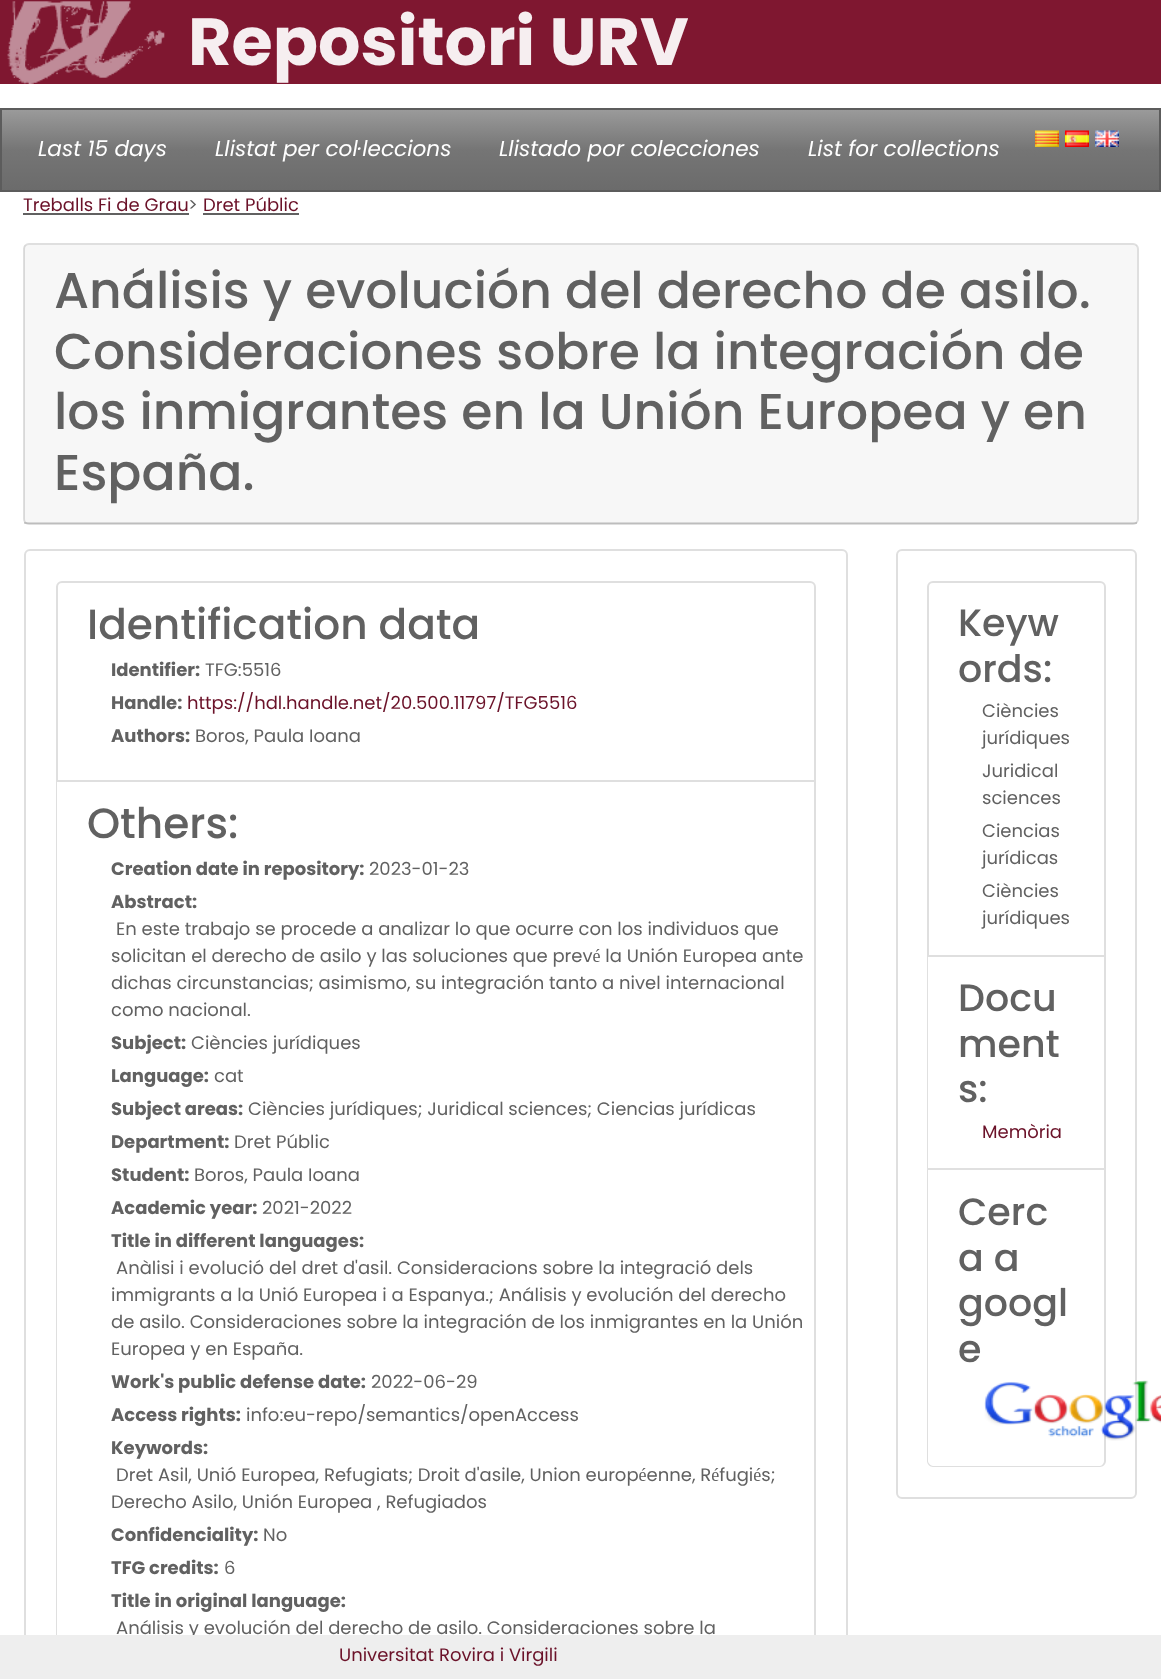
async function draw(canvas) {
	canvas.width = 1161;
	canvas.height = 1679;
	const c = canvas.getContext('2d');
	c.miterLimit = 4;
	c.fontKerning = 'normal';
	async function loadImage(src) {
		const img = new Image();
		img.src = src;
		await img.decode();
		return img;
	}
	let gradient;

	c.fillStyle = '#fff';
	c.fillRect(0, 0, 1161, 1679);
	c.fillStyle = '#7f1730';
	c.fillRect(0, 0, 1161, 84);
	c.drawImage(await loadImage('img1.png'), 7, 1, 158, 83);
	c.font = 'bold 66.75px Poppins';
	c.fillStyle = '#f6eef0';
	c.fillText('Repositori URV', 188, 65);
	gradient = c.createLinearGradient(581, 109, 581, 191);
	gradient.addColorStop(0, '#9b9b9b');
	gradient.addColorStop(0.5, '#757575');
	gradient.addColorStop(1, '#6b6b6b');
	c.fillStyle = gradient;
	c.fillRect(2, 110, 1157, 80);
	c.strokeStyle = '#5c5c5c';
	c.lineWidth = 2;
	c.strokeRect(1, 109, 1159, 82);
	c.font = 'italic 21.6px Poppins';
	c.fillStyle = '#fff';
	for (const [text, x, y] of [
		['Last 15 days', 38, 156],
		['Llistat per col·leccions', 215, 156],
		['Llistado por colecciones', 499, 156],
		['List for collections', 808, 156],
	]) {
		c.fillText(text, x, y);
	}
	c.drawImage(await loadImage('img2.png'), 1035, 130, 24, 17);
	c.drawImage(await loadImage('img3.png'), 1065, 130, 24, 17);
	c.drawImage(await loadImage('img4.png'), 1095, 130, 24, 17);
	c.font = '18px Poppins';
	c.fillStyle = '#6b1229';
	c.fillText('Treballs Fi de Grau', 23, 211);
	c.fillStyle = '#616161';
	c.fillRect(23, 213, 166, 2);
	c.fillText('>', 188, 211);
	c.fillStyle = '#6b1229';
	c.fillText('Dret Públic', 203, 211);
	c.fillStyle = '#616161';
	c.fillRect(203, 213, 96, 2);
	c.beginPath();
	c.roundRect(24, 244, 1114, 280, 5);
	c.strokeStyle = '#dfdfdf';
	c.stroke();
	c.fillStyle = '#00000008';
	c.fillRect(24, 245, 1113, 279);
	c.fillStyle = '#0000001f';
	c.fillRect(24, 522, 1113, 2);
	c.font = '500 50.4px Poppins';
	c.fillStyle = '#616161';
	for (const [text, x, y] of [
		['Análisis y evolución del derecho de asilo.', 54, 308],
		['Consideraciones sobre la integración de', 54, 369],
		['los inmigrantes en la Unión Europea y en', 54, 429],
		['España.', 54, 490],
	]) {
		c.fillText(text, x, y);
	}
	c.beginPath();
	c.roundRect(25, 550, 822, 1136, 5);
	c.stroke();
	c.beginPath();
	c.roundRect(57, 582, 758, 199, [5, 5, 0, 0]);
	c.stroke();
	c.font = '500 42.25px Poppins';
	c.fillText('Identification data', 87, 639);
	c.font = 'bold 18px Poppins';
	c.fillText('Identifier:', 111, 676);
	c.font = '18px Poppins';
	c.fillText('TFG:5516', 205, 676);
	c.font = 'bold 18px Poppins';
	c.fillText('Handle:', 111, 709);
	c.font = '18px Poppins';
	c.fillStyle = '#6b1229';
	c.fillText('https://hdl.handle.net/20.500.11797/TFG5516', 187, 709);
	c.font = 'bold 18px Poppins';
	c.fillStyle = '#616161';
	c.fillText('Authors:', 111, 742);
	c.font = '18px Poppins';
	c.fillText('Boros, Paula Ioana', 195, 742);
	c.fillStyle = '#dfdfdf';
	c.beginPath();
	c.moveTo(56, 782);
	c.lineTo(816, 782);
	c.lineTo(816, 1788);
	c.bezierCurveTo(816, 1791, 813, 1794, 810, 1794);
	c.lineTo(62, 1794);
	c.bezierCurveTo(58, 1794, 56, 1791, 56, 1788);
	c.closePath();
	c.moveTo(57, 782);
	c.lineTo(814, 782);
	c.lineTo(814, 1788);
	c.bezierCurveTo(814, 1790, 812, 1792, 810, 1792);
	c.lineTo(62, 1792);
	c.bezierCurveTo(59, 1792, 57, 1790, 57, 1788);
	c.closePath();
	c.fill('evenodd');
	c.font = '500 42.25px Poppins';
	c.fillStyle = '#616161';
	c.fillText('Others:', 87, 838);
	c.font = 'bold 18px Poppins';
	c.fillText('Creation date in repository:', 111, 875);
	c.font = '18px Poppins';
	c.fillText('2023-01-23', 369, 875);
	c.font = 'bold 18px Poppins';
	c.fillText('Abstract:', 111, 908);
	c.font = '18px Poppins';
	for (const [text, x, y] of [
		['En este trabajo se procede a analizar lo que ocurre con los individuos que', 116, 935],
		['solicitan el derecho de asilo y las soluciones que prevé la Unión Europea ante', 111, 962],
		['dichas circunstancias; asimismo, su integración tanto a nivel internacional', 111, 989],
		['como nacional.', 111, 1016],
	]) {
		c.fillText(text, x, y);
	}
	c.font = 'bold 18px Poppins';
	c.fillText('Subject:', 111, 1049);
	c.font = '18px Poppins';
	c.fillText('Ciències jurídiques', 191, 1049);
	c.font = 'bold 18px Poppins';
	c.fillText('Language:', 111, 1082);
	c.font = '18px Poppins';
	c.fillText('cat', 214, 1082);
	c.font = 'bold 18px Poppins';
	c.fillText('Subject areas:', 111, 1115);
	c.font = '18px Poppins';
	c.fillText('Ciències jurídiques; Juridical sciences; Ciencias jurídicas', 248, 1115);
	c.font = 'bold 18px Poppins';
	c.fillText('Department:', 111, 1148);
	c.font = '18px Poppins';
	c.fillText('Dret Públic', 234, 1148);
	c.font = 'bold 18px Poppins';
	c.fillText('Student:', 111, 1181);
	c.font = '18px Poppins';
	c.fillText('Boros, Paula Ioana', 194, 1181);
	c.font = 'bold 18px Poppins';
	c.fillText('Academic year:', 111, 1214);
	c.font = '18px Poppins';
	c.fillText('2021-2022', 262, 1214);
	c.font = 'bold 18px Poppins';
	c.fillText('Title in different languages:', 111, 1247);
	c.font = '18px Poppins';
	for (const [text, x, y] of [
		['Anàlisi i evolució del dret d\'asil. Consideracions sobre la integració dels', 116, 1274],
		['immigrants a la Unió Europea i a Espanya.; Análisis y evolución del derecho', 111, 1301],
		['de asilo. Consideraciones sobre la integración de los inmigrantes en la Unión', 111, 1328],
		['Europea y en España.', 111, 1355],
	]) {
		c.fillText(text, x, y);
	}
	c.font = 'bold 18px Poppins';
	c.fillText('Work\'s public defense date:', 111, 1388);
	c.font = '18px Poppins';
	c.fillText('2022-06-29', 371, 1388);
	c.font = 'bold 18px Poppins';
	c.fillText('Access rights:', 111, 1421);
	c.font = '18px Poppins';
	c.fillText('info:eu-repo/semantics/openAccess', 246, 1421);
	c.font = 'bold 18px Poppins';
	c.fillText('Keywords:', 111, 1454);
	c.font = '18px Poppins';
	c.fillText('Dret Asil, Unió Europea, Refugiats; Droit d\'asile, Union européenne, Réfugiés;', 116, 1481);
	c.fillText('Derecho Asilo, Unión Europea , Refugiados', 111, 1508);
	c.font = 'bold 18px Poppins';
	c.fillText('Confidenciality:', 111, 1541);
	c.font = '18px Poppins';
	c.fillText('No', 263, 1541);
	c.font = 'bold 18px Poppins';
	c.fillText('TFG credits:', 111, 1574);
	c.font = '18px Poppins';
	c.fillText('6', 224, 1574);
	c.font = 'bold 18px Poppins';
	c.fillText('Title in original language:', 111, 1607);
	c.font = '18px Poppins';
	c.fillText('Análisis y evolución del derecho de asilo. Consideraciones sobre la', 116, 1634);
	c.beginPath();
	c.roundRect(897, 550, 239, 948, 5);
	c.stroke();
	c.beginPath();
	c.roundRect(928, 582, 177, 374, [5, 5, 0, 0]);
	c.stroke();
	c.font = '500 38px Poppins';
	c.fillText('Keyw', 958, 636);
	c.fillText('ords:', 958, 682);
	c.font = '18px Poppins';
	for (const [text, x, y] of [
		['Ciències', 982, 717],
		['jurídiques', 982, 744],
		['Juridical', 982, 777],
		['sciences', 982, 804],
		['Ciencias', 982, 837],
		['jurídicas', 982, 864],
		['Ciències', 982, 897],
		['jurídiques', 982, 924],
	]) {
		c.fillText(text, x, y);
	}
	c.fillStyle = '#dfdfdf';
	c.beginPath();
	c.moveTo(1106, 957);
	c.lineTo(1106, 1170);
	c.lineTo(1104, 1168);
	c.lineTo(1104, 957);
	c.closePath();
	c.fill();
	c.fillStyle = '#0000001f';
	c.beginPath();
	c.moveTo(1106, 1170);
	c.lineTo(927, 1170);
	c.lineTo(928, 1168);
	c.lineTo(1104, 1168);
	c.closePath();
	c.fill();
	c.beginPath();
	c.moveTo(927, 1170);
	c.lineTo(927, 957);
	c.lineTo(928, 957);
	c.lineTo(928, 1168);
	c.closePath();
	c.fill();
	c.font = '500 38px Poppins';
	c.fillStyle = '#616161';
	for (const [text, x, y] of [
		['Docu', 958, 1011],
		['ment', 958, 1057],
		['s:', 958, 1102],
	]) {
		c.fillText(text, x, y);
	}
	c.font = '18px Poppins';
	c.fillStyle = '#6b1229';
	c.fillText('Memòria', 982, 1138);
	c.fillStyle = '#dfdfdf';
	c.beginPath();
	c.moveTo(927, 1170);
	c.lineTo(1106, 1170);
	c.lineTo(1106, 1461);
	c.bezierCurveTo(1106, 1464, 1103, 1467, 1100, 1467);
	c.lineTo(933, 1467);
	c.bezierCurveTo(930, 1467, 927, 1464, 927, 1461);
	c.closePath();
	c.moveTo(928, 1170);
	c.lineTo(1104, 1170);
	c.lineTo(1104, 1461);
	c.bezierCurveTo(1104, 1463, 1102, 1466, 1100, 1466);
	c.lineTo(933, 1466);
	c.bezierCurveTo(931, 1466, 928, 1463, 928, 1461);
	c.closePath();
	c.fill('evenodd');
	c.font = '500 38px Poppins';
	c.fillStyle = '#616161';
	for (const [text, x, y] of [
		['Cerc', 958, 1225],
		['a a', 958, 1271],
		['googl', 958, 1316],
		['e', 958, 1362],
	]) {
		c.fillText(text, x, y);
	}
	c.drawImage(await loadImage('img5.png'), 984, 1380, 177, 61);
	c.fillStyle = '#eee';
	c.fillRect(0, 1635, 1161, 44);
	c.font = '18px Poppins';
	c.fillStyle = '#6b1229';
	c.fillText('Universitat Rovira i Virgili', 339, 1661);
}

draw(document.querySelector('canvas'));
